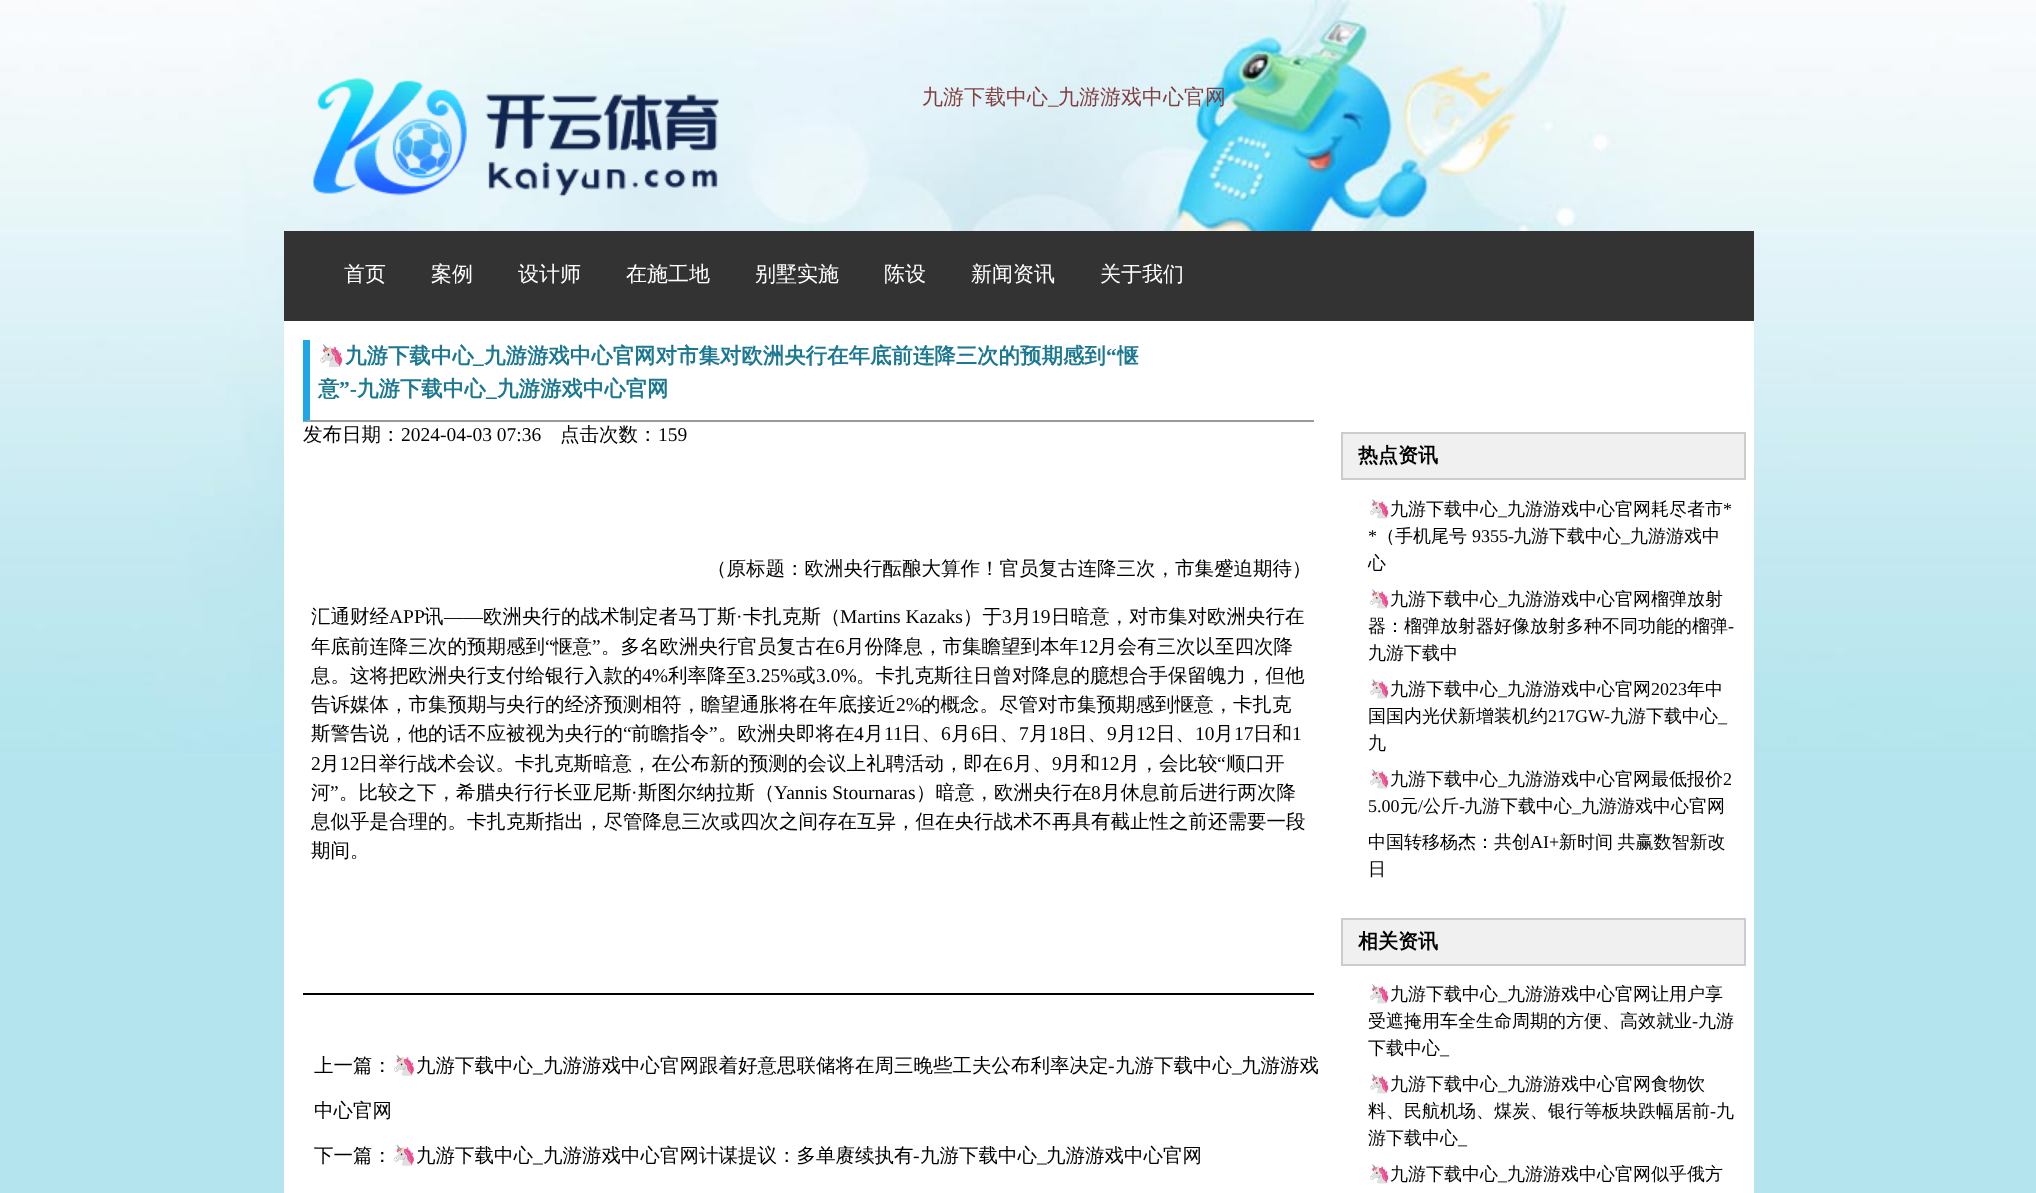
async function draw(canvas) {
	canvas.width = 2036;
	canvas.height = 1193;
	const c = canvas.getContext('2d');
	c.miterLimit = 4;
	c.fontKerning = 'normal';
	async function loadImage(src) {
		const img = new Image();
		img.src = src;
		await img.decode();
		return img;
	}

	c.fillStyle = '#b4e4ee';
	c.fillRect(0, 0, 2036, 1193);
	c.drawImage(await loadImage('img1.png'), 0, 0, 2036, 756);
	c.drawImage(await loadImage('img2.png'), 313, 77, 406, 120);
	c.font = '500 21px WenQuanYi Zen Hei';
	c.fillStyle = '#833f3f';
	c.fillText('九游下载中心', 922, 104);
	c.font = '21px Liberation Serif';
	c.fillText('_', 1048, 104);
	c.font = '500 21px WenQuanYi Zen Hei';
	c.fillText('九游游戏中心官网', 1058, 104);
	c.fillStyle = '#333';
	c.fillRect(284, 231, 1470, 90);
	c.fillStyle = '#fff';
	for (const [text, x, y] of [
		['首页', 344, 281],
		['案例', 431, 281],
		['设计师', 518, 281],
		['在施工地', 626, 281],
		['别墅实施', 755, 281],
		['陈设', 884, 281],
		['新闻资讯', 971, 281],
		['关于我们', 1100, 281],
	]) {
		c.fillText(text, x, y);
	}
	c.fillRect(284, 321, 1470, 872);
	c.fillStyle = '#999';
	c.beginPath();
	c.moveTo(1314, 422);
	c.lineTo(303, 422);
	c.lineTo(310, 420);
	c.lineTo(1314, 420);
	c.closePath();
	c.fill();
	c.fillStyle = '#1fa6e6';
	c.beginPath();
	c.moveTo(303, 422);
	c.lineTo(303, 340);
	c.lineTo(310, 340);
	c.lineTo(310, 420);
	c.closePath();
	c.fill();
	c.font = 'bold 21.45px Noto Color Emoji';
	c.fillStyle = '#1c7791';
	c.fillText('🦄', 318, 363);
	c.font = 'bold 21.45px WenQuanYi Zen Hei';
	c.fillText('九游下载中心', 345, 363);
	c.font = 'bold 21.45px Liberation Serif';
	c.fillText('_', 473, 363);
	c.font = 'bold 21.45px WenQuanYi Zen Hei';
	c.fillText('九游游戏中心官网对市集对欧洲央行在年底前连降三次的预期感到', 484, 363);
	c.font = 'bold 21.45px Liberation Serif';
	c.fillText('“', 1106, 363);
	c.font = 'bold 21.45px WenQuanYi Zen Hei';
	c.fillText('惬', 1117, 363);
	c.fillText('意', 318, 396);
	c.font = 'bold 21.45px Liberation Serif';
	c.fillText('”-', 339, 396);
	c.font = 'bold 21.45px WenQuanYi Zen Hei';
	c.fillText('九游下载中心', 357, 396);
	c.fillText('九游游戏中心官网', 497, 396);
	c.font = 'bold 21.45px Liberation Serif';
	c.fillText('_', 486, 396);
	c.font = '500 19.5px WenQuanYi Zen Hei';
	c.fillStyle = '#000';
	c.fillText('发布日期：', 303, 441);
	c.font = '19.5px Liberation Serif';
	c.fillText('2024-04-03 07:36', 401, 441);
	c.font = '500 19.5px WenQuanYi Zen Hei';
	c.fillText('点击次数：', 560, 441);
	c.font = '19.5px Liberation Serif';
	c.fillText('159', 658, 441);
	c.fillRect(303, 993, 1011, 2);
	c.font = '500 19.5px WenQuanYi Zen Hei';
	c.fillText('（原标题：欧洲央行酝酿大算作！官员复古连降三次，市集蹙迫期待）', 707, 575);
	c.fillText('汇通财经', 311, 623);
	c.font = '19.5px Liberation Serif';
	c.fillText('APP', 389, 623);
	c.font = '500 19.5px WenQuanYi Zen Hei';
	c.fillText('讯', 424, 623);
	c.font = '19.5px Liberation Serif';
	c.fillText('——', 444, 623);
	c.font = '500 19.5px WenQuanYi Zen Hei';
	c.fillText('欧洲央行的战术制定者马丁斯', 483, 623);
	c.font = '19.5px Liberation Serif';
	c.fillText('·', 736, 623);
	c.font = '500 19.5px WenQuanYi Zen Hei';
	c.fillText('卡扎克斯（', 743, 623);
	c.font = '19.5px Liberation Serif';
	c.fillText('Martins Kazaks', 840, 623);
	c.font = '500 19.5px WenQuanYi Zen Hei';
	c.fillText('）于', 963, 623);
	c.font = '19.5px Liberation Serif';
	c.fillText('3', 1002, 623);
	c.font = '500 19.5px WenQuanYi Zen Hei';
	c.fillText('月', 1012, 623);
	c.font = '19.5px Liberation Serif';
	c.fillText('19', 1031, 623);
	c.font = '500 19.5px WenQuanYi Zen Hei';
	c.fillText('日暗意，对市集对欧洲央行在', 1051, 623);
	c.fillText('年底前连降三次的预期感到', 311, 653);
	c.font = '19.5px Liberation Serif';
	c.fillText('“', 545, 653);
	c.font = '500 19.5px WenQuanYi Zen Hei';
	c.fillText('惬意', 553, 653);
	c.font = '19.5px Liberation Serif';
	c.fillText('”', 592, 653);
	c.font = '500 19.5px WenQuanYi Zen Hei';
	c.fillText('。多名欧洲央行官员复古在', 601, 653);
	c.font = '19.5px Liberation Serif';
	c.fillText('6', 835, 653);
	c.font = '500 19.5px WenQuanYi Zen Hei';
	c.fillText('月份降息，市集瞻望到本年', 845, 653);
	c.font = '19.5px Liberation Serif';
	c.fillText('12', 1079, 653);
	c.font = '500 19.5px WenQuanYi Zen Hei';
	c.fillText('月会有三次以至四次降', 1098, 653);
	c.fillText('息。这将把欧洲央行支付给银行入款的', 311, 682);
	c.font = '19.5px Liberation Serif';
	c.fillText('4%', 642, 682);
	c.font = '500 19.5px WenQuanYi Zen Hei';
	c.fillText('利率降至', 668, 682);
	c.font = '19.5px Liberation Serif';
	c.fillText('3.25%', 746, 682);
	c.font = '500 19.5px WenQuanYi Zen Hei';
	c.fillText('或', 796, 682);
	c.font = '19.5px Liberation Serif';
	c.fillText('3.0%', 816, 682);
	c.font = '500 19.5px WenQuanYi Zen Hei';
	c.fillText('。卡扎克斯往日曾对降息的臆想合手保留魄力，但他', 856, 682);
	c.fillText('告诉媒体，市集预期与央行的经济预测相符，瞻望通胀将在年底接近', 311, 711);
	c.font = '19.5px Liberation Serif';
	c.fillText('2%', 896, 711);
	c.font = '500 19.5px WenQuanYi Zen Hei';
	c.fillText('的概念。尽管对市集预期感到惬意，卡扎克', 921, 711);
	c.fillText('斯警告说，他的话不应被视为央行的', 311, 740);
	c.font = '19.5px Liberation Serif';
	c.fillText('“', 623, 740);
	c.font = '500 19.5px WenQuanYi Zen Hei';
	c.fillText('前瞻指令', 631, 740);
	c.font = '19.5px Liberation Serif';
	c.fillText('”', 709, 740);
	c.font = '500 19.5px WenQuanYi Zen Hei';
	c.fillText('。欧洲央即将在', 718, 740);
	c.font = '19.5px Liberation Serif';
	c.fillText('4', 854, 740);
	c.font = '500 19.5px WenQuanYi Zen Hei';
	c.fillText('月', 864, 740);
	c.font = '19.5px Liberation Serif';
	c.fillText('11', 884, 740);
	c.font = '500 19.5px WenQuanYi Zen Hei';
	c.fillText('日、', 902, 740);
	c.font = '19.5px Liberation Serif';
	c.fillText('6', 941, 740);
	c.font = '500 19.5px WenQuanYi Zen Hei';
	c.fillText('月', 951, 740);
	c.font = '19.5px Liberation Serif';
	c.fillText('6', 971, 740);
	c.font = '500 19.5px WenQuanYi Zen Hei';
	c.fillText('日、', 980, 740);
	c.font = '19.5px Liberation Serif';
	c.fillText('7', 1019, 740);
	c.font = '500 19.5px WenQuanYi Zen Hei';
	c.fillText('月', 1029, 740);
	c.font = '19.5px Liberation Serif';
	c.fillText('18', 1049, 740);
	c.font = '500 19.5px WenQuanYi Zen Hei';
	c.fillText('日、', 1068, 740);
	c.font = '19.5px Liberation Serif';
	c.fillText('9', 1107, 740);
	c.font = '500 19.5px WenQuanYi Zen Hei';
	c.fillText('月', 1117, 740);
	c.font = '19.5px Liberation Serif';
	c.fillText('12', 1136, 740);
	c.font = '500 19.5px WenQuanYi Zen Hei';
	c.fillText('日、', 1156, 740);
	c.font = '19.5px Liberation Serif';
	c.fillText('10', 1195, 740);
	c.font = '500 19.5px WenQuanYi Zen Hei';
	c.fillText('月', 1214, 740);
	c.font = '19.5px Liberation Serif';
	c.fillText('17', 1234, 740);
	c.font = '500 19.5px WenQuanYi Zen Hei';
	c.fillText('日和', 1253, 740);
	c.font = '19.5px Liberation Serif';
	c.fillText('1', 1292, 740);
	c.fillText('2', 311, 770);
	c.font = '500 19.5px WenQuanYi Zen Hei';
	c.fillText('月', 320, 770);
	c.font = '19.5px Liberation Serif';
	c.fillText('12', 340, 770);
	c.font = '500 19.5px WenQuanYi Zen Hei';
	c.fillText('日举行战术会议。卡扎克斯暗意，在公布新的预测的会议上礼聘活动，即在', 359, 770);
	c.font = '19.5px Liberation Serif';
	c.fillText('6', 1003, 770);
	c.font = '500 19.5px WenQuanYi Zen Hei';
	c.fillText('月、', 1013, 770);
	c.font = '19.5px Liberation Serif';
	c.fillText('9', 1052, 770);
	c.font = '500 19.5px WenQuanYi Zen Hei';
	c.fillText('月和', 1061, 770);
	c.font = '19.5px Liberation Serif';
	c.fillText('12', 1100, 770);
	c.font = '500 19.5px WenQuanYi Zen Hei';
	c.fillText('月，会比较', 1120, 770);
	c.font = '19.5px Liberation Serif';
	c.fillText('“', 1217, 770);
	c.font = '500 19.5px WenQuanYi Zen Hei';
	c.fillText('顺口开', 1226, 770);
	c.fillText('河', 311, 799);
	c.font = '19.5px Liberation Serif';
	c.fillText('”', 330, 799);
	c.font = '500 19.5px WenQuanYi Zen Hei';
	c.fillText('。比较之下，希腊央行行长亚尼斯', 339, 799);
	c.font = '19.5px Liberation Serif';
	c.fillText('·', 631, 799);
	c.font = '500 19.5px WenQuanYi Zen Hei';
	c.fillText('斯图尔纳拉斯（', 638, 799);
	c.font = '19.5px Liberation Serif';
	c.fillText('Yannis Stournaras', 774, 799);
	c.font = '500 19.5px WenQuanYi Zen Hei';
	c.fillText('）暗意，欧洲央行在', 916, 799);
	c.font = '19.5px Liberation Serif';
	c.fillText('8', 1091, 799);
	c.font = '500 19.5px WenQuanYi Zen Hei';
	for (const [text, x, y] of [
		['月休息前后进行两次降', 1101, 799],
		['息似乎是合理的。卡扎克斯指出，尽管降息三次或四次之间存在互异，但在央行战术不再具有截止性之前还需要一段', 311, 828],
		['期间。', 311, 857],
		['上一篇：', 314, 1072],
	]) {
		c.fillText(text, x, y);
	}
	c.font = '19.5px Noto Color Emoji';
	c.fillText('🦄', 392, 1072);
	c.font = '500 19.5px WenQuanYi Zen Hei';
	c.fillText('九游下载中心', 416, 1072);
	c.fillText('九游游戏中心官网跟着好意思联储将在周三晚些工夫公布利率决定', 543, 1072);
	c.font = '19.5px Liberation Serif';
	c.fillText('-', 1108, 1072);
	c.font = '500 19.5px WenQuanYi Zen Hei';
	c.fillText('九游下载中心', 1115, 1072);
	c.fillText('九游游戏', 1241, 1072);
	c.font = '19.5px Liberation Serif';
	c.fillText('_', 533, 1072);
	c.fillText('_', 1232, 1072);
	c.font = '500 19.5px WenQuanYi Zen Hei';
	c.fillText('中心官网', 314, 1117);
	c.fillText('下一篇：', 314, 1162);
	c.font = '19.5px Noto Color Emoji';
	c.fillText('🦄', 392, 1162);
	c.font = '500 19.5px WenQuanYi Zen Hei';
	c.fillText('九游下载中心', 416, 1162);
	c.fillText('九游游戏中心官网计谋提议：多单赓续执有', 543, 1162);
	c.font = '19.5px Liberation Serif';
	c.fillText('-', 913, 1162);
	c.font = '500 19.5px WenQuanYi Zen Hei';
	c.fillText('九游下载中心', 920, 1162);
	c.fillText('九游游戏中心官网', 1046, 1162);
	c.font = '19.5px Liberation Serif';
	c.fillText('_', 533, 1162);
	c.fillText('_', 1037, 1162);
	c.fillStyle = '#f0f0f0';
	c.beginPath();
	c.rect(1342, 433, 403, 46);
	c.fill();
	c.strokeStyle = '#ccc';
	c.lineWidth = 2;
	c.stroke();
	c.font = 'bold 20px WenQuanYi Zen Hei';
	c.fillStyle = '#000';
	c.fillText('热点资讯', 1358, 462);
	c.font = '18px Noto Color Emoji';
	c.fillText('🦄', 1368, 515);
	c.font = '500 18px WenQuanYi Zen Hei';
	c.fillText('九游下载中心', 1390, 515);
	c.fillText('九游游戏中心官网耗尽者市', 1507, 515);
	c.font = '18px Liberation Serif';
	for (const [text, x, y] of [
		['*', 1723, 515],
		['_', 1498, 515],
		['*', 1368, 542],
	]) {
		c.fillText(text, x, y);
	}
	c.font = '500 18px WenQuanYi Zen Hei';
	c.fillText('（手机尾号', 1377, 542);
	c.font = '18px Liberation Serif';
	c.fillText('9355-', 1472, 542);
	c.font = '500 18px WenQuanYi Zen Hei';
	c.fillText('九游下载中心', 1513, 542);
	c.fillText('九游游戏中', 1630, 542);
	c.font = '18px Liberation Serif';
	c.fillText('_', 1621, 542);
	c.font = '500 18px WenQuanYi Zen Hei';
	c.fillText('心', 1368, 569);
	c.font = '18px Noto Color Emoji';
	c.fillText('🦄', 1368, 605);
	c.font = '500 18px WenQuanYi Zen Hei';
	c.fillText('九游下载中心', 1390, 605);
	c.font = '18px Liberation Serif';
	c.fillText('_', 1498, 605);
	c.font = '500 18px WenQuanYi Zen Hei';
	c.fillText('九游游戏中心官网榴弹放射', 1507, 605);
	c.fillText('器：榴弹放射器好像放射多种不同功能的榴弹', 1368, 632);
	c.font = '18px Liberation Serif';
	c.fillText('-', 1728, 632);
	c.font = '500 18px WenQuanYi Zen Hei';
	c.fillText('九游下载中', 1368, 659);
	c.font = '18px Noto Color Emoji';
	c.fillText('🦄', 1368, 695);
	c.font = '500 18px WenQuanYi Zen Hei';
	c.fillText('九游下载中心', 1390, 695);
	c.fillText('九游游戏中心官网', 1507, 695);
	c.font = '18px Liberation Serif';
	c.fillText('2023', 1651, 695);
	c.font = '500 18px WenQuanYi Zen Hei';
	c.fillText('年中', 1687, 695);
	c.font = '18px Liberation Serif';
	c.fillText('_', 1498, 695);
	c.font = '500 18px WenQuanYi Zen Hei';
	c.fillText('国国内光伏新增装机约', 1368, 722);
	c.font = '18px Liberation Serif';
	c.fillText('217GW-', 1548, 722);
	c.font = '500 18px WenQuanYi Zen Hei';
	c.fillText('九游下载中心', 1610, 722);
	c.font = '18px Liberation Serif';
	c.fillText('_', 1718, 722);
	c.font = '500 18px WenQuanYi Zen Hei';
	c.fillText('九', 1368, 749);
	c.font = '18px Noto Color Emoji';
	c.fillText('🦄', 1368, 785);
	c.font = '500 18px WenQuanYi Zen Hei';
	c.fillText('九游下载中心', 1390, 785);
	c.fillText('九游游戏中心官网最低报价', 1507, 785);
	c.font = '18px Liberation Serif';
	for (const [text, x, y] of [
		['2', 1723, 785],
		['_', 1498, 785],
		['5.00', 1368, 812],
	]) {
		c.fillText(text, x, y);
	}
	c.font = '500 18px WenQuanYi Zen Hei';
	c.fillText('元', 1400, 812);
	c.font = '18px Liberation Serif';
	c.fillText('/', 1418, 812);
	c.font = '500 18px WenQuanYi Zen Hei';
	c.fillText('公斤', 1423, 812);
	c.font = '18px Liberation Serif';
	c.fillText('-', 1459, 812);
	c.font = '500 18px WenQuanYi Zen Hei';
	c.fillText('九游下载中心', 1464, 812);
	c.fillText('九游游戏中心官网', 1581, 812);
	c.font = '18px Liberation Serif';
	c.fillText('_', 1572, 812);
	c.font = '500 18px WenQuanYi Zen Hei';
	c.fillText('中国转移杨杰：共创', 1368, 848);
	c.font = '18px Liberation Serif';
	c.fillText('AI+', 1530, 848);
	c.wordSpacing = '-1px';
	c.font = '500 18px WenQuanYi Zen Hei';
	c.fillText('新时间 共赢数智新改', 1559, 848);
	c.wordSpacing = '0px';
	c.fillText('日', 1368, 875);
	c.fillStyle = '#f0f0f0';
	c.beginPath();
	c.rect(1342, 919, 403, 46);
	c.fill();
	c.stroke();
	c.font = 'bold 20px WenQuanYi Zen Hei';
	c.fillStyle = '#000';
	c.fillText('相关资讯', 1358, 948);
	c.font = '18px Noto Color Emoji';
	c.fillText('🦄', 1368, 1000);
	c.font = '500 18px WenQuanYi Zen Hei';
	c.fillText('九游下载中心', 1390, 1000);
	c.font = '18px Liberation Serif';
	c.fillText('_', 1498, 1000);
	c.font = '500 18px WenQuanYi Zen Hei';
	c.fillText('九游游戏中心官网让用户享', 1507, 1000);
	c.fillText('受遮掩用车全生命周期的方便、高效就业', 1368, 1027);
	c.font = '18px Liberation Serif';
	c.fillText('-', 1692, 1027);
	c.font = '500 18px WenQuanYi Zen Hei';
	c.fillText('九游', 1698, 1027);
	c.fillText('下载中心', 1368, 1054);
	c.font = '18px Liberation Serif';
	c.fillText('_', 1440, 1054);
	c.font = '18px Noto Color Emoji';
	c.fillText('🦄', 1368, 1090);
	c.font = '500 18px WenQuanYi Zen Hei';
	c.fillText('九游下载中心', 1390, 1090);
	c.font = '18px Liberation Serif';
	c.fillText('_', 1498, 1090);
	c.font = '500 18px WenQuanYi Zen Hei';
	c.fillText('九游游戏中心官网食物饮', 1507, 1090);
	c.fillText('料、民航机场、煤炭、银行等板块跌幅居前', 1368, 1117);
	c.font = '18px Liberation Serif';
	c.fillText('-', 1710, 1117);
	c.font = '500 18px WenQuanYi Zen Hei';
	c.fillText('九', 1716, 1117);
	c.fillText('游下载中心', 1368, 1144);
	c.font = '18px Liberation Serif';
	c.fillText('_', 1458, 1144);
	c.font = '18px Noto Color Emoji';
	c.fillText('🦄', 1368, 1180);
	c.font = '500 18px WenQuanYi Zen Hei';
	c.fillText('九游下载中心', 1390, 1180);
	c.font = '18px Liberation Serif';
	c.fillText('_', 1498, 1180);
	c.font = '500 18px WenQuanYi Zen Hei';
	c.fillText('九游游戏中心官网似乎俄方', 1507, 1180);
}

draw(document.querySelector('canvas'));
